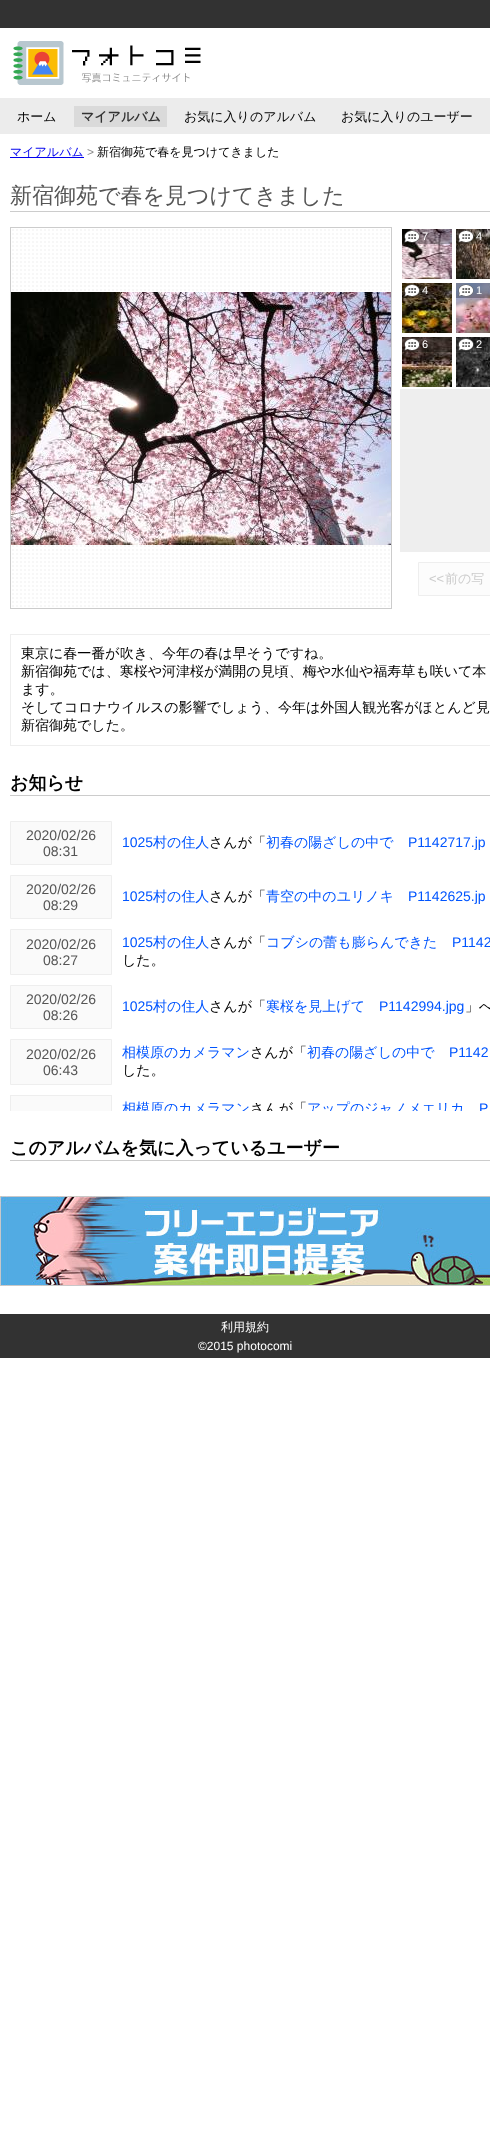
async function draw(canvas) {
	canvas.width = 490;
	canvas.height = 2150;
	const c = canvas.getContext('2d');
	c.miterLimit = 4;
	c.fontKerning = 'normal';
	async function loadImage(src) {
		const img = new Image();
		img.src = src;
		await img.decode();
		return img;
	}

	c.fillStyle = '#fff';
	c.fillRect(0, 0, 490, 2150);
	c.fillStyle = '#323232';
	c.fillRect(0, 0, 490, 28);
	c.drawImage(await loadImage('img1.png'), 13, 41, 188, 44);
	c.fillStyle = '#ececec';
	c.fillRect(0, 98, 490, 36);
	c.font = '500 13px WenQuanYi Zen Hei';
	c.fillStyle = '#000';
	c.fillText('ホーム', 17, 121);
	c.fillStyle = '#dadada';
	c.fillRect(74, 106, 93, 21);
	c.font = 'bold 13px WenQuanYi Zen Hei';
	c.fillStyle = '#333';
	c.fillText('マイアルバム', 81, 121);
	c.font = '500 13px WenQuanYi Zen Hei';
	c.fillStyle = '#000';
	c.fillText('お気に入りのアルバム', 184, 121);
	c.fillText('お気に入りのユーザー', 341, 121);
	c.fillStyle = '#00e';
	c.fillRect(10, 157, 74, 1);
	c.font = '500 12px WenQuanYi Zen Hei';
	c.fillText('マイアルバム', 10, 156);
	c.font = '12px Liberation Sans';
	c.fillStyle = '#888';
	c.fillText('>', 87, 156);
	c.font = '500 12px WenQuanYi Zen Hei';
	c.fillStyle = '#000';
	c.fillText('新宿御苑で春を見つけてきました', 97, 156);
	c.fillStyle = '#ccc';
	c.fillRect(10, 211, 480, 1);
	c.font = '500 22px WenQuanYi Zen Hei';
	c.fillStyle = '#555';
	c.fillText('新宿御苑で春を見つけてきました', 10, 203);
	c.drawImage(await loadImage('img2.png'), 12, 229, 378, 378);
	c.strokeStyle = '#ccc';
	c.strokeRect(10.5, 227.5, 381, 381);
	c.drawImage(await loadImage('img3.png'), 11, 292, 380, 253);
	c.fillStyle = '#eee';
	c.fillRect(400, 389, 90, 163);
	c.drawImage(await loadImage('img4.png'), 402, 229, 50, 50);
	c.fillStyle = '#0000004d';
	c.fillRect(402, 229, 50, 15);
	c.drawImage(await loadImage('img5.png'), 404, 230, 16, 13);
	c.font = '11px Liberation Sans';
	c.fillStyle = '#fff';
	c.fillText('7', 422, 240);
	c.drawImage(await loadImage('img6.png'), 456, 229, 34, 50);
	c.fillStyle = '#0000004d';
	c.fillRect(456, 229, 34, 15);
	c.drawImage(await loadImage('img7.png'), 458, 230, 16, 13);
	c.fillStyle = '#fff';
	c.fillText('4', 476, 240);
	c.drawImage(await loadImage('img8.png'), 402, 283, 50, 50);
	c.fillStyle = '#0000004d';
	c.fillRect(402, 283, 50, 15);
	c.drawImage(await loadImage('img9.png'), 404, 284, 16, 13);
	c.fillStyle = '#fff';
	c.fillText('4', 422, 294);
	c.drawImage(await loadImage('img10.png'), 456, 283, 34, 50);
	c.fillStyle = '#0000004d';
	c.fillRect(456, 283, 34, 15);
	c.drawImage(await loadImage('img11.png'), 458, 284, 16, 13);
	c.fillStyle = '#fff';
	c.fillText('1', 476, 294);
	c.drawImage(await loadImage('img12.png'), 402, 337, 50, 50);
	c.fillStyle = '#0000004d';
	c.fillRect(402, 337, 50, 15);
	c.drawImage(await loadImage('img13.png'), 404, 338, 16, 13);
	c.fillStyle = '#fff';
	c.fillText('6', 422, 348);
	c.drawImage(await loadImage('img14.png'), 456, 337, 34, 50);
	c.fillStyle = '#0000004d';
	c.fillRect(456, 337, 34, 15);
	c.drawImage(await loadImage('img15.png'), 458, 338, 16, 13);
	c.fillStyle = '#fff';
	c.fillText('2', 476, 348);
	c.fillStyle = '#fcfcfc';
	c.beginPath();
	c.rect(418.5, 562.5, 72, 33);
	c.fill();
	c.strokeStyle = '#eee';
	c.stroke();
	c.font = '13px Liberation Sans';
	c.fillStyle = '#ccc';
	c.fillText('<<', 429, 583);
	c.font = '500 13px WenQuanYi Zen Hei';
	c.fillText('前の写', 445, 583);
	c.strokeRect(10.5, 634.5, 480, 111);
	c.font = '500 14px WenQuanYi Zen Hei';
	c.fillStyle = '#000';
	for (const [text, x, y] of [
		['東京に春一番が吹き、今年の春は早そうですね。', 21, 658],
		['新宿御苑では、寒桜や河津桜が満開の見頃、梅や水仙や福寿草も咲いて本', 21, 676],
		['ます。', 21, 694],
		['そしてコロナウイルスの影響でしょう、今年は外国人観光客がほとんど見', 21, 712],
		['新宿御苑でした。', 21, 730],
	]) {
		c.fillText(text, x, y);
	}
	c.fillStyle = '#ccc';
	c.fillRect(10, 795, 480, 1);
	c.font = 'bold 18px WenQuanYi Zen Hei';
	c.fillStyle = '#000';
	c.fillText('お知らせ', 10, 789);
	c.fillStyle = '#fafafa';
	c.beginPath();
	c.rect(10.5, 821.5, 101, 43);
	c.fill();
	c.stroke();
	c.font = '14px Liberation Sans';
	c.fillStyle = '#555';
	c.fillText('2020/02/26', 26, 840);
	c.fillText('08:31', 43, 856);
	c.fillStyle = '#05f';
	c.fillText('1025', 122, 847);
	c.font = '500 14px WenQuanYi Zen Hei';
	c.fillText('村の住人', 153, 847);
	c.fillStyle = '#000';
	c.fillText('さんが「', 209, 847);
	c.fillStyle = '#05f';
	c.fillText('初春の陽ざしの中で', 266, 847);
	c.font = '14px Liberation Sans';
	c.fillText('P1142717.jp', 408, 847);
	c.fillStyle = '#fafafa';
	c.beginPath();
	c.rect(10.5, 875.5, 101, 43);
	c.fill();
	c.stroke();
	c.fillStyle = '#555';
	c.fillText('2020/02/26', 26, 894);
	c.fillText('08:29', 43, 910);
	c.fillStyle = '#05f';
	c.fillText('1025', 122, 901);
	c.font = '500 14px WenQuanYi Zen Hei';
	c.fillText('村の住人', 153, 901);
	c.fillStyle = '#000';
	c.fillText('さんが「', 209, 901);
	c.fillStyle = '#05f';
	c.fillText('青空の中のユリノキ', 266, 901);
	c.font = '14px Liberation Sans';
	c.fillText('P1142625.jp', 408, 901);
	c.fillStyle = '#fafafa';
	c.beginPath();
	c.rect(10.5, 929.5, 101, 45);
	c.fill();
	c.stroke();
	c.fillStyle = '#555';
	c.fillText('2020/02/26', 26, 949);
	c.fillText('08:27', 43, 965);
	c.fillStyle = '#05f';
	c.fillText('1025', 122, 947);
	c.font = '500 14px WenQuanYi Zen Hei';
	c.fillText('村の住人', 153, 947);
	c.fillStyle = '#000';
	c.fillText('さんが「', 209, 947);
	c.fillStyle = '#05f';
	c.fillText('コブシの蕾も膨らんできた', 266, 947);
	c.font = '14px Liberation Sans';
	c.fillText('P1142', 452, 947);
	c.font = '500 14px WenQuanYi Zen Hei';
	c.fillStyle = '#000';
	c.fillText('した。', 122, 965);
	c.fillStyle = '#fafafa';
	c.beginPath();
	c.rect(10.5, 985.5, 101, 43);
	c.fill();
	c.stroke();
	c.font = '14px Liberation Sans';
	c.fillStyle = '#555';
	c.fillText('2020/02/26', 26, 1004);
	c.fillText('08:26', 43, 1020);
	c.fillStyle = '#05f';
	c.fillText('1025', 122, 1011);
	c.font = '500 14px WenQuanYi Zen Hei';
	c.fillText('村の住人', 153, 1011);
	c.fillStyle = '#000';
	c.fillText('さんが「', 209, 1011);
	c.fillStyle = '#05f';
	c.fillText('寒桜を見上げて', 266, 1011);
	c.font = '14px Liberation Sans';
	c.fillText('P1142994.jpg', 379, 1011);
	c.font = '500 14px WenQuanYi Zen Hei';
	c.fillStyle = '#000';
	c.fillText('」へ', 465, 1011);
	c.fillStyle = '#fafafa';
	c.beginPath();
	c.rect(10.5, 1039.5, 101, 45);
	c.fill();
	c.stroke();
	c.font = '14px Liberation Sans';
	c.fillStyle = '#555';
	c.fillText('2020/02/26', 26, 1059);
	c.fillText('06:43', 43, 1075);
	c.font = '500 14px WenQuanYi Zen Hei';
	c.fillStyle = '#05f';
	c.fillText('相模原のカメラマン', 122, 1057);
	c.fillStyle = '#000';
	c.fillText('さんが「', 250, 1057);
	c.fillStyle = '#05f';
	c.fillText('初春の陽ざしの中で', 307, 1057);
	c.font = '14px Liberation Sans';
	c.fillText('P1142', 449, 1057);
	c.font = '500 14px WenQuanYi Zen Hei';
	c.fillStyle = '#000';
	c.fillText('した。', 122, 1075);
	c.fillStyle = '#fafafa';
	c.fillRect(11, 1096, 100, 15);
	c.font = 'bold 18px WenQuanYi Zen Hei';
	c.fillStyle = '#000';
	c.fillText('このアルバムを気に入っているユーザー', 10, 1154);
	c.save();
	c.beginPath();
	c.rect(10, 811, 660, 300);
	c.clip();
	c.strokeRect(10.5, 1095.5, 101, 45);
	c.font = '500 14px WenQuanYi Zen Hei';
	c.fillStyle = '#05f';
	c.fillText('相模原のカメラマン', 122, 1113);
	c.fillStyle = '#000';
	c.fillText('さんが「', 250, 1113);
	c.fillStyle = '#05f';
	c.fillText('アップのジャノメエリカ', 307, 1113);
	c.font = '14px Liberation Sans';
	c.fillText('P', 479, 1113);
	c.restore();
	c.fillStyle = '#ccc';
	c.fillRect(10, 1160, 480, 1);
	c.drawImage(await loadImage('img16.png'), 0, 1196, 490, 90);
	c.fillStyle = '#323232';
	c.fillRect(0, 1314, 490, 44);
	c.font = '500 12px WenQuanYi Zen Hei';
	c.fillStyle = '#fff';
	c.fillText('利用規約', 221, 1331);
	c.font = '12px Liberation Sans';
	c.fillText('©2015 photocomi', 198, 1350);
}

draw(document.querySelector('canvas'));
